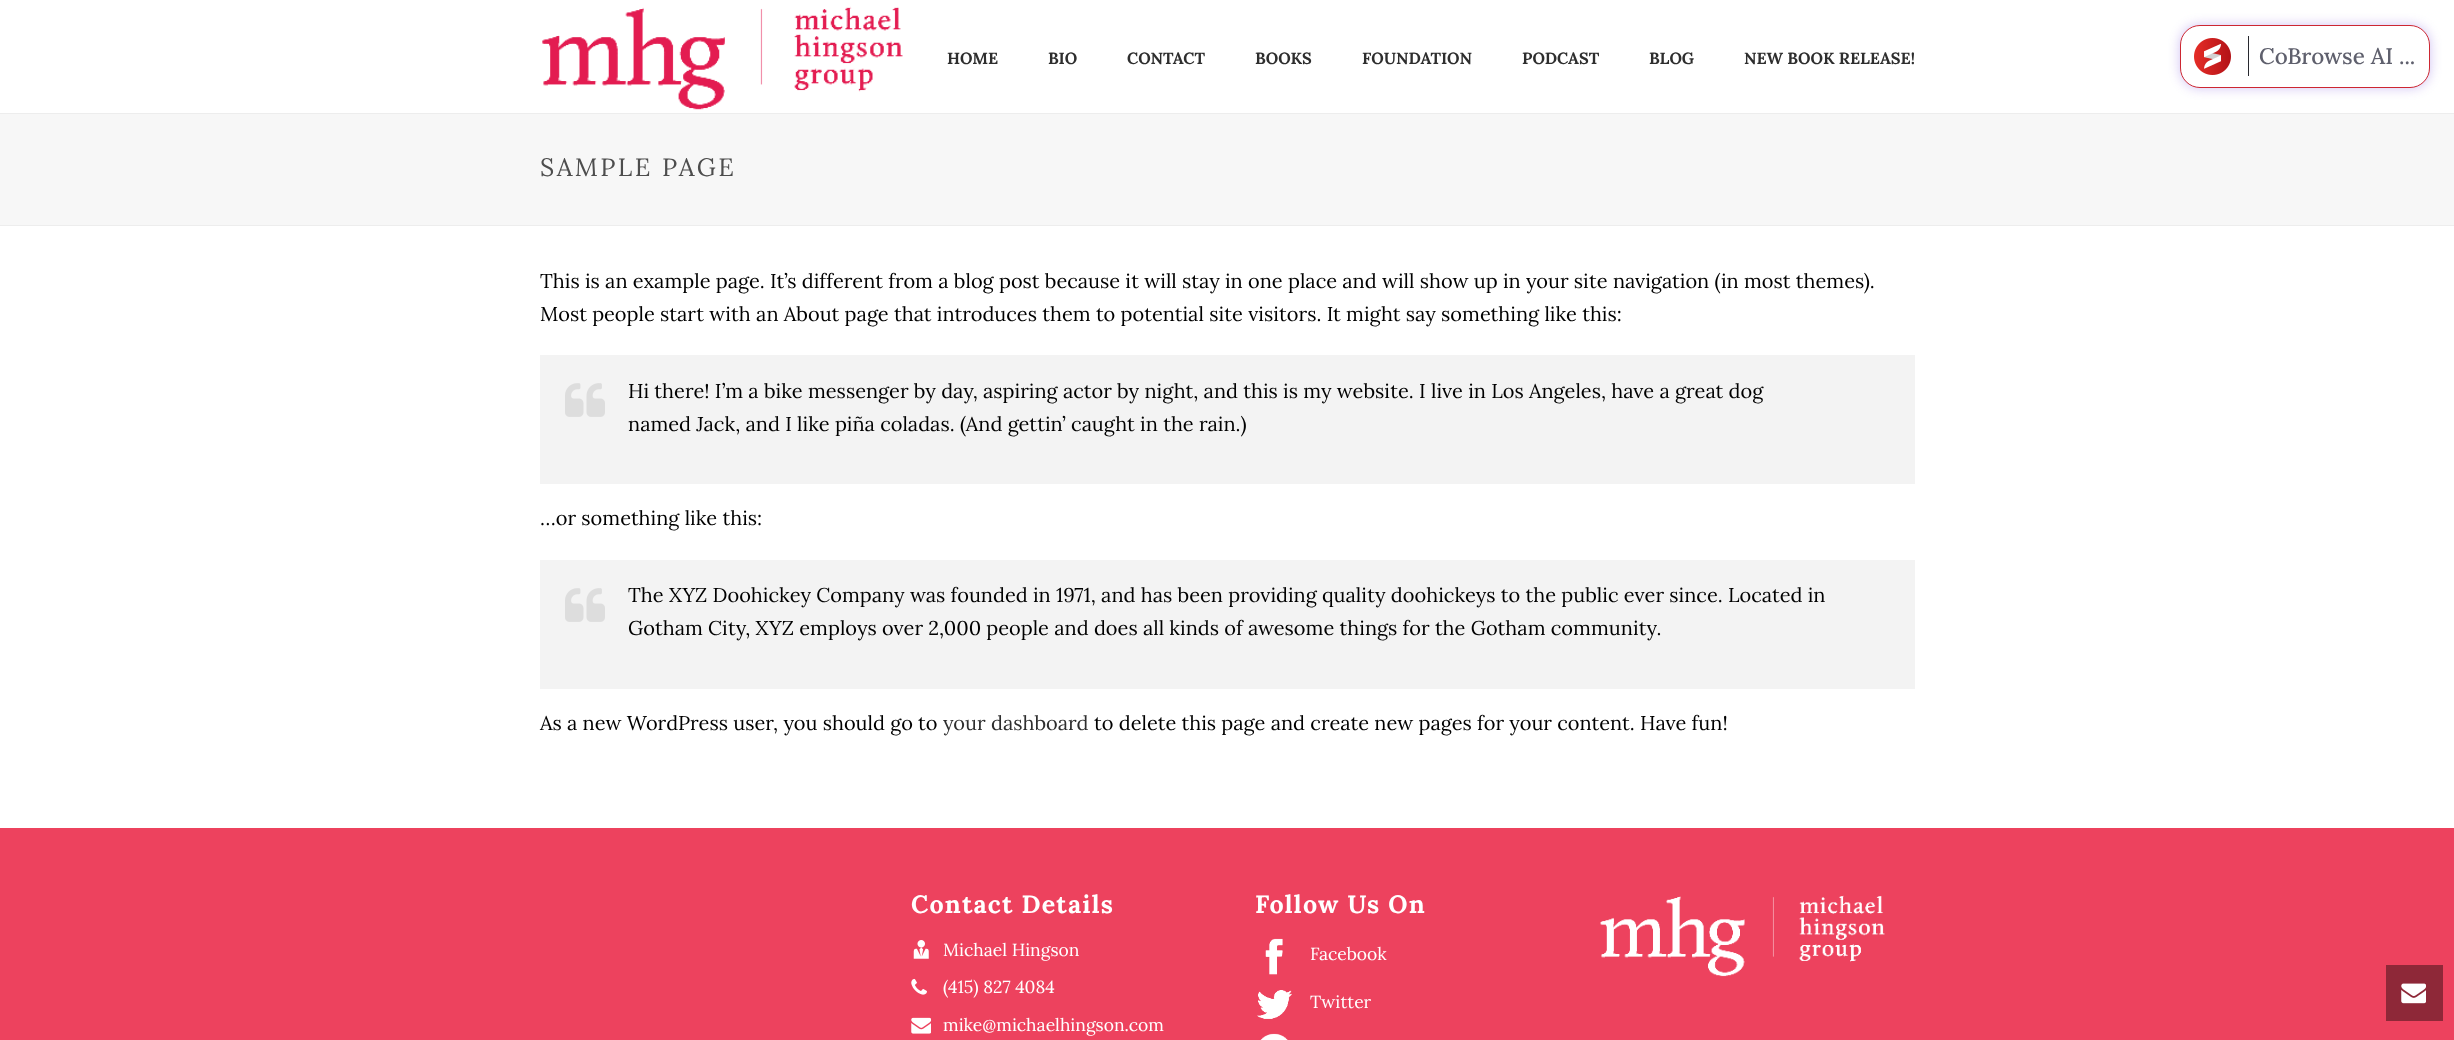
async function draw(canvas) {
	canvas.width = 2454;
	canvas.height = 1040;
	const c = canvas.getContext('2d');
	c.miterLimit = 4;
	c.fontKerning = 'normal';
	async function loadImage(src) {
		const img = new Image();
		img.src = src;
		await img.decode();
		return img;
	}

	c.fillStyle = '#fff';
	c.fillRect(0, 0, 2454, 1040);
	for (const [x, y, w, h, color] of [
		[0, 114, 2454, 111, '#f7f7f7'],
		[0, 225, 2454, 1, '#ededed'],
		[0, 113, 2454, 1, '#ededed'],
	]) {
		c.fillStyle = color;
		c.fillRect(x, y, w, h);
	}
	c.drawImage(await loadImage('img1.png'), 542, 6, 361, 104);
	c.font = 'bold 16.25px Lora';
	c.fillStyle = '#2e2e2e';
	for (const [text, x, y] of [
		['HOME', 947, 64],
		['BIO', 1048, 64],
		['CONTACT', 1127, 64],
		['BOOKS', 1255, 64],
		['FOUNDATION', 1362, 64],
		['PODCAST', 1522, 64],
		['BLOG', 1649, 64],
		['NEW BOOK RELEASE!', 1744, 64],
	]) {
		c.fillText(text, x, y);
	}
	c.letterSpacing = '2.5px';
	c.font = '25px Lora';
	c.fillStyle = '#4d4d4d';
	c.fillText('SAMPLE PAGE', 540, 176);
	c.letterSpacing = '0px';
	c.font = '20px Lora';
	c.fillStyle = '#000';
	c.fillText('This is an example page. It’s different from a blog post because it will stay in one place and will show up in your site navigation (in most themes).', 540, 288);
	c.fillText('Most people start with an About page that introduces them to potential site visitors. It might say something like this:', 540, 321);
	c.fillStyle = '#f3f3f3';
	c.fillRect(540, 355, 1375, 129);
	c.drawImage(await loadImage('img2.png'), 565, 383, 40, 34);
	c.fillStyle = '#000';
	for (const [text, x, y] of [
		['Hi there! I’m a bike messenger by day, aspiring actor by night, and this is my website. I live in Los Angeles, have a great dog', 628, 398],
		['named Jack, and I like piña coladas. (And gettin’ caught in the rain.)', 628, 431],
		['…or something like this:', 540, 525],
	]) {
		c.fillText(text, x, y);
	}
	c.fillStyle = '#f3f3f3';
	c.fillRect(540, 560, 1375, 129);
	c.drawImage(await loadImage('img2.png'), 565, 588, 40, 34);
	c.fillStyle = '#000';
	for (const [text, x, y] of [
		['The XYZ Doohickey Company was founded in 1971, and has been providing quality doohickeys to the public ever since. Located in', 628, 602],
		['Gotham City, XYZ employs over 2,000 people and does all kinds of awesome things for the Gotham community.', 628, 635],
		['As a new WordPress user, you should go to', 540, 730],
	]) {
		c.fillText(text, x, y);
	}
	c.fillStyle = '#2e2e2e';
	c.fillText('your dashboard', 943, 730);
	c.fillStyle = '#000';
	c.fillText('to delete this page and create new pages for your content. Have fun!', 1094, 730);
	c.fillStyle = '#ed425e';
	c.fillRect(0, 828, 2454, 212);
	c.letterSpacing = '1.25px';
	c.font = 'bold 25px Lora';
	c.fillStyle = '#fff';
	c.fillText('Contact Details', 911, 913);
	c.drawImage(await loadImage('img3.png'), 913, 940, 16, 19);
	c.letterSpacing = '0px';
	c.font = '17.5px Lora';
	c.fillText('Michael Hingson', 943, 956);
	c.drawImage(await loadImage('img4.png'), 911, 978, 16, 17);
	c.fillText('(415) 827 4084', 943, 993);
	c.drawImage(await loadImage('img5.png'), 911, 1017, 20, 17);
	c.fillText('mike@michaelhingson.com', 943, 1031);
	c.letterSpacing = '1.25px';
	c.font = 'bold 25px Lora';
	c.fillText('Follow Us On', 1255, 913);
	c.drawImage(await loadImage('img6.png'), 1265, 938, 18, 37);
	c.letterSpacing = '0px';
	c.font = '17.5px Lora';
	c.fillText('Facebook', 1310, 960);
	c.drawImage(await loadImage('img7.png'), 1257, 990, 35, 29);
	c.fillText('Twitter', 1310, 1008);
	c.drawImage(await loadImage('img8.png'), 1260, 1033, 28, 7);
	c.drawImage(await loadImage('img9.png'), 1600, 895, 285, 82);
	c.fillStyle = '#440dcf40';
	c.filter = 'blur(6px)';
	c.beginPath();
	c.roundRect(2180, 25, 250, 63, 20);
	c.fill();
	c.filter = 'none';
	c.fillStyle = '#fff';
	c.beginPath();
	c.roundRect(2180.5, 25.5, 249, 62, 19.5);
	c.fill();
	c.strokeStyle = '#cd2732';
	c.stroke();
	c.drawImage(await loadImage('img10.png'), 2194, 38, 37, 37);
	c.fillStyle = '#28292f';
	c.fillRect(2248, 36, 1, 40);
	c.font = '500 22.5px Lora';
	c.fillStyle = '#5f606d';
	c.fillText('CoBrowse AI ...', 2259, 64);
	c.fillStyle = '#8e2838';
	c.fillRect(2386, 965, 57, 56);
	c.drawImage(await loadImage('img11.png'), 2401, 983, 25, 21);
}

draw(document.querySelector('canvas'));
